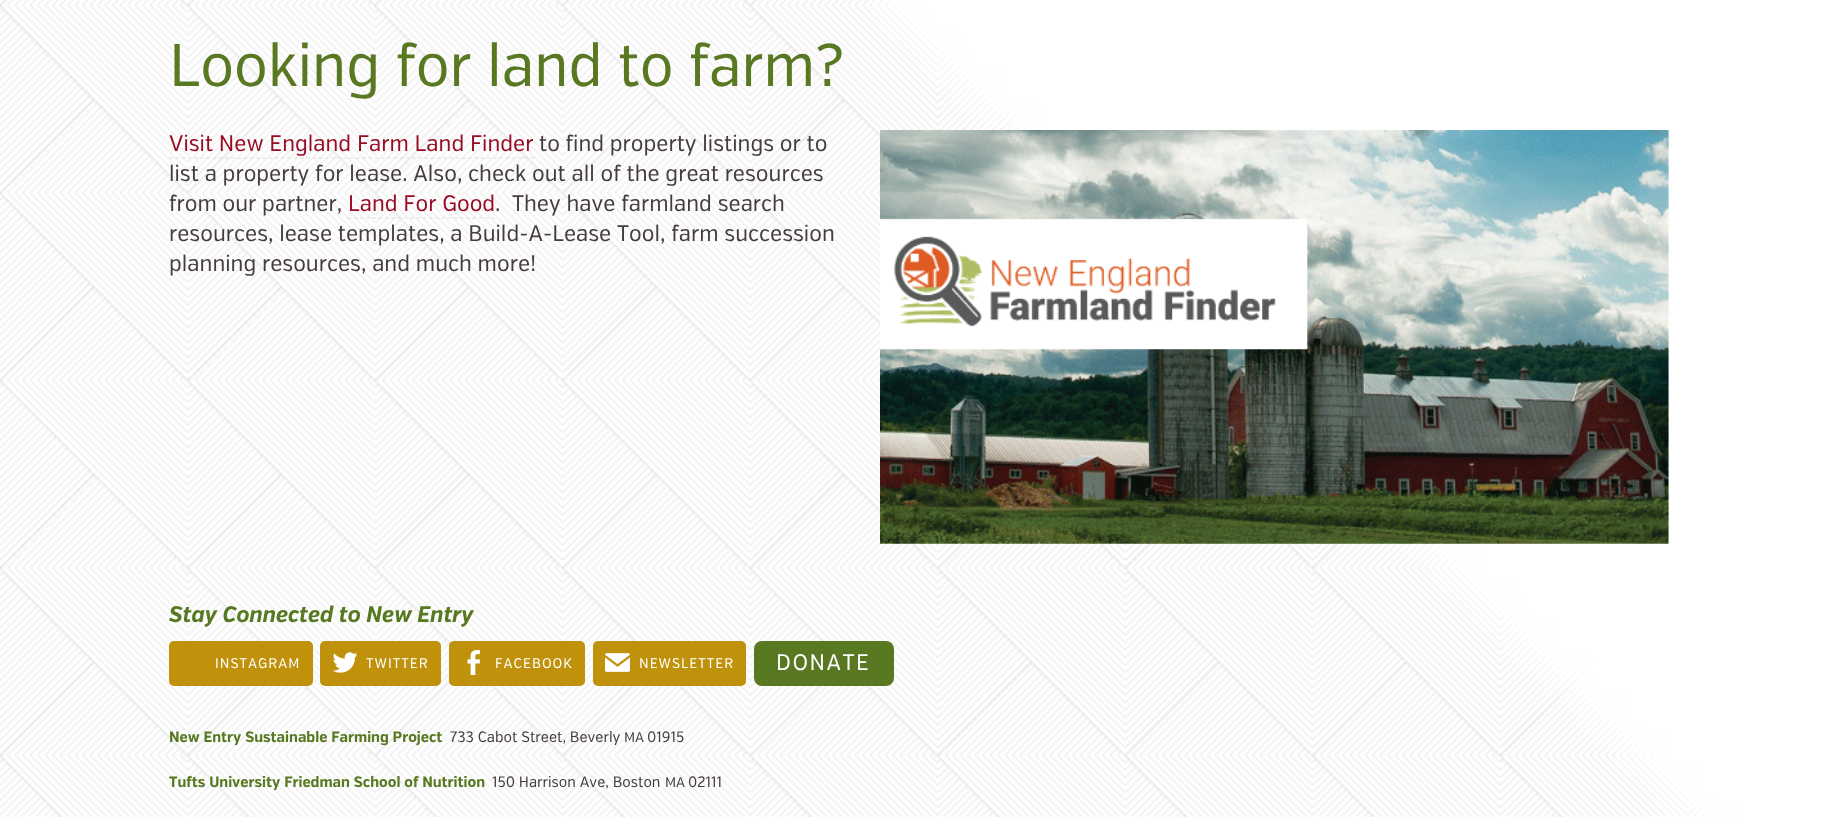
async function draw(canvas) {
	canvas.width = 1837;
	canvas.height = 817;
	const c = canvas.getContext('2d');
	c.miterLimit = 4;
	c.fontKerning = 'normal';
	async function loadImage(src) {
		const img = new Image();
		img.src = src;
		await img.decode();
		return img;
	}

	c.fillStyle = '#fff';
	c.fillRect(0, 0, 1837, 817);
	c.drawImage(await loadImage('img1.png'), 0, 0, 1746, 817);
	c.drawImage(await loadImage('img2.png'), 870, 0, 967, 817);
	c.font = '60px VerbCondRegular';
	c.fillStyle = '#587822';
	c.fillText('Looking for land to farm?', 169, 86);
	c.font = '22.5px VerbCondRegular';
	c.fillStyle = '#980b22';
	c.fillText('Visit New England Farm Land Finder', 169, 151);
	c.beginPath();
	c.moveTo(169, 158);
	c.lineTo(534, 158);
	c.strokeStyle = '#dcd7d9';
	c.lineWidth = 1.2;
	c.setLineDash([3.75, 2.48]);
	c.stroke();
	c.fillStyle = '#453c3f';
	for (const [text, x, y] of [
		['to find property listings or to', 539, 151],
		['list a property for lease. Also, check out all of the great resources', 169, 181],
		['from our partner,', 169, 211],
	]) {
		c.fillText(text, x, y);
	}
	c.fillStyle = '#980b22';
	c.fillText('Land For Good', 348, 211);
	c.beginPath();
	c.moveTo(347.5, 218);
	c.lineTo(495, 218);
	c.setLineDash([3.75, 2.5]);
	c.stroke();
	c.fillStyle = '#453c3f';
	for (const [text, x, y] of [
		['.  They have farmland search', 495, 211],
		['resources, lease templates, a Build-A-Lease Tool, farm succession', 169, 241],
		['planning resources, and much more!', 169, 271],
	]) {
		c.fillText(text, x, y);
	}
	c.drawImage(await loadImage('img3.png'), 880, 130, 789, 414);
	c.font = 'bold 22.5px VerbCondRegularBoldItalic';
	c.fillStyle = '#587822';
	c.fillText('Stay Connected to New Entry', 169, 622);
	c.fillStyle = '#c0910b';
	c.beginPath();
	c.roundRect(169, 641, 144, 45, 5);
	c.fill();
	c.letterSpacing = '1px';
	c.font = '14px VerbCondRegular';
	c.fillStyle = '#fff';
	c.fillText('INSTAGRAM', 215, 668);
	c.fillStyle = '#c0910b';
	c.beginPath();
	c.roundRect(320, 641, 121, 45, 5);
	c.fill();
	c.drawImage(await loadImage('img4.png'), 333, 652, 25, 21);
	c.fillStyle = '#fff';
	c.fillText('TWITTER', 366, 668);
	c.fillStyle = '#c0910b';
	c.beginPath();
	c.roundRect(449, 641, 136, 45, 5);
	c.fill();
	c.drawImage(await loadImage('img5.png'), 467, 650, 13, 25);
	c.fillStyle = '#fff';
	c.fillText('FACEBOOK', 495, 668);
	c.fillStyle = '#c0910b';
	c.beginPath();
	c.roundRect(593, 641, 153, 45, 5);
	c.fill();
	c.drawImage(await loadImage('img6.png'), 605, 653, 25, 19);
	c.fillStyle = '#fff';
	c.fillText('NEWSLETTER', 639, 668);
	c.fillStyle = '#587822';
	c.beginPath();
	c.roundRect(754, 641, 140, 45, 8);
	c.fill();
	c.letterSpacing = '1.5px';
	c.font = '22.5px VerbCondRegular';
	c.fillStyle = '#fff';
	c.fillText('DONATE', 776, 670);
	c.letterSpacing = '0px';
	c.font = 'bold 15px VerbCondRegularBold';
	c.fillStyle = '#587822';
	c.fillText('New Entry Sustainable Farming Project', 169, 742);
	c.font = '15px VerbCondRegular';
	c.fillStyle = '#453c3f';
	c.fillText('733 Cabot Street, Beverly', 450, 742);
	c.font = '14px VerbCondRegular';
	c.fillText('MA', 624, 742);
	c.font = '15px VerbCondRegular';
	c.fillText('01915', 647, 742);
	c.font = 'bold 15px VerbCondRegularBold';
	c.fillStyle = '#587822';
	c.fillText('Tufts University Friedman School of Nutrition', 169, 787);
	c.font = '15px VerbCondRegular';
	c.fillStyle = '#453c3f';
	c.fillText('150 Harrison Ave, Boston', 492, 787);
	c.font = '14px VerbCondRegular';
	c.fillText('MA', 665, 787);
	c.font = '15px VerbCondRegular';
	c.fillText('02111', 688, 787);
}

draw(document.querySelector('canvas'));
